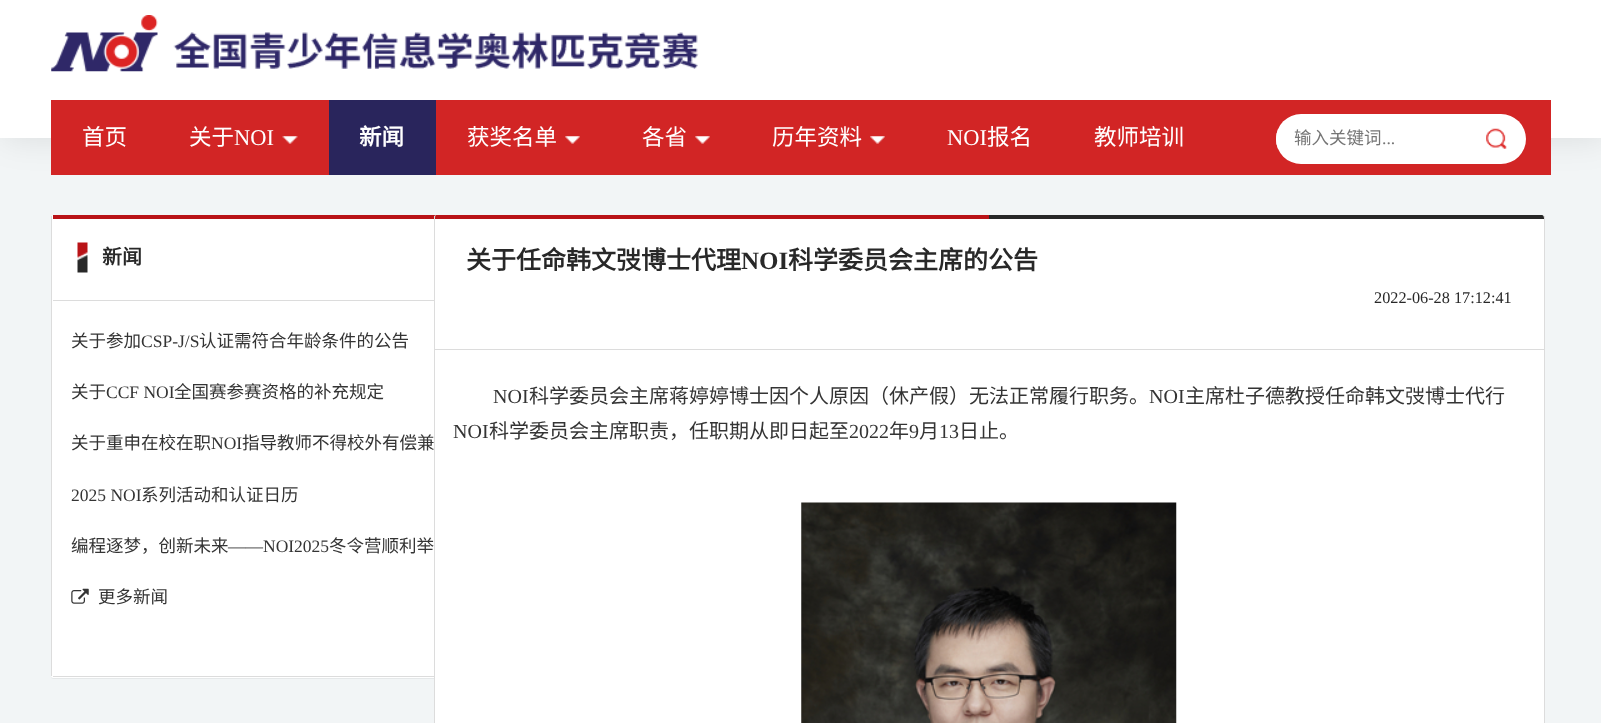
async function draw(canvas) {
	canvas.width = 1601;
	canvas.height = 723;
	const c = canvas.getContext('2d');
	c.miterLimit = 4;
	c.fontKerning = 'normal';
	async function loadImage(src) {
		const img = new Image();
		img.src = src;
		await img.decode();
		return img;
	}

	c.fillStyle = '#f2f5f6';
	c.fillRect(0, 0, 1601, 723);
	c.fillStyle = '#0000001a';
	c.filter = 'blur(17px)';
	c.beginPath();
	c.rect(4, 0, 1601, 138);
	c.fill();
	c.filter = 'none';
	c.fillStyle = '#fff';
	c.fillRect(0, 0, 1601, 138);
	c.drawImage(await loadImage('img1.png'), 51, 15, 648, 57);
	c.fillStyle = '#d22525';
	c.fillRect(51, 100, 1500, 75);
	c.font = '22.5px Noto Sans CJK SC';
	c.fillStyle = '#fff';
	c.fillText('首页', 82, 145);
	c.fillText('关于', 189, 145);
	c.font = '22.5px Liberation Serif';
	c.fillText('NOI', 234, 145);
	c.drawImage(await loadImage('img2.png'), 282, 136, 16, 8);
	c.fillStyle = '#29255c';
	c.fillRect(329, 100, 107, 75);
	c.font = 'bold 22.5px Noto Sans CJK SC';
	c.fillStyle = '#fff';
	c.fillText('新闻', 359, 145);
	c.font = '22.5px Noto Sans CJK SC';
	c.fillText('获奖名单', 467, 145);
	c.drawImage(await loadImage('img3.png'), 565, 136, 15, 8);
	c.fillText('各省', 642, 145);
	c.drawImage(await loadImage('img3.png'), 695, 136, 15, 8);
	c.fillText('历年资料', 772, 145);
	c.drawImage(await loadImage('img4.png'), 870, 136, 15, 8);
	c.font = '22.5px Liberation Serif';
	c.fillText('NOI', 947, 145);
	c.font = '22.5px Noto Sans CJK SC';
	c.fillText('报名', 987, 145);
	c.fillText('教师培训', 1094, 145);
	c.beginPath();
	c.roundRect(1276, 114, 250, 50, 25);
	c.fill();
	c.save();
	c.beginPath();
	c.roundRect(1276, 114, 250, 50, 25);
	c.clip();
	c.fillRect(1276, 129, 207, 20);
	c.restore();
	c.font = '17.5px Noto Sans CJK SC';
	c.fillStyle = '#757575';
	c.fillText('输入关键词', 1294, 144);
	c.font = '17.5px Liberation Serif';
	c.fillText('...', 1382, 144);
	c.drawImage(await loadImage('img5.png'), 1486, 128, 21, 21);
	c.fillStyle = '#0000000d';
	c.filter = 'blur(0.5px)';
	c.beginPath();
	c.roundRect(51, 216, 857, 463, 2.5);
	c.fill();
	c.filter = 'none';
	c.fillStyle = '#fff';
	c.beginPath();
	c.roundRect(51, 215, 857, 463, 2.5);
	c.fill();
	c.fillStyle = '#dcdcdc';
	c.fillRect(53, 676, 381, 1);
	c.fillRect(51, 216, 1, 460);
	c.drawImage(await loadImage('img6.png'), 77, 242, 11, 31);
	c.fillRect(53, 300, 381, 1);
	c.fillStyle = '#b91317';
	c.fillRect(53, 215, 383, 4);
	c.font = 'bold 20px Noto Sans CJK SC';
	c.fillStyle = '#282828';
	c.fillText('新闻', 102, 264);
	c.font = '17.5px Noto Sans CJK SC';
	c.fillStyle = '#343434';
	c.fillText('关于参加', 71, 347);
	c.font = '17.5px Liberation Serif';
	c.fillText('CSP-J/S', 141, 347);
	c.font = '17.5px Noto Sans CJK SC';
	c.fillText('认证需符合年龄条件的公告', 199, 347);
	c.fillText('关于', 71, 398);
	c.font = '17.5px Liberation Serif';
	c.fillText('CCF NOI', 106, 398);
	c.font = '17.5px Noto Sans CJK SC';
	c.fillText('全国赛参赛资格的补充规定', 174, 398);
	c.fillText('关于重申在校在职', 71, 449);
	c.font = '17.5px Liberation Serif';
	c.fillText('NOI', 211, 449);
	c.font = '17.5px Noto Sans CJK SC';
	c.fillText('指导教师不得校外有偿兼', 242, 449);
	c.font = '17.5px Liberation Serif';
	c.fillText('2025 NOI', 71, 501);
	c.font = '17.5px Noto Sans CJK SC';
	c.fillText('系列活动和认证日历', 141, 501);
	c.fillText('编程逐梦，创新未来', 71, 552);
	c.font = '17.5px Liberation Serif';
	c.fillText('——NOI2025', 228, 552);
	c.font = '17.5px Noto Sans CJK SC';
	c.fillText('冬令营顺利举', 329, 552);
	c.drawImage(await loadImage('img7.png'), 71, 588, 18, 16);
	c.fillText('更多新闻', 98, 603);
	c.fillStyle = '#fff';
	c.beginPath();
	c.roundRect(434, 215, 1111, 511, 2.5);
	c.fill();
	c.fillStyle = '#dcdcdc';
	c.fillRect(1544, 216, 1, 507);
	c.fillRect(434, 216, 1, 507);
	c.fillStyle = '#fff';
	c.beginPath();
	c.moveTo(438, 215);
	c.bezierCurveTo(436, 215, 435, 216, 435, 218);
	c.lineTo(435, 350);
	c.lineTo(1544, 350);
	c.lineTo(1544, 218);
	c.lineTo(1543, 216);
	c.lineTo(1542, 215);
	c.closePath();
	c.fill();
	c.fillStyle = '#dcdcdc';
	c.fillRect(435, 349, 1109, 1);
	c.fillStyle = '#b91317';
	c.beginPath();
	c.moveTo(436, 215);
	c.bezierCurveTo(435, 215, 435, 218, 435, 219);
	c.lineTo(989, 219);
	c.lineTo(989, 215);
	c.closePath();
	c.fill();
	c.fillStyle = '#282828';
	c.beginPath();
	c.moveTo(989, 215);
	c.lineTo(989, 219);
	c.lineTo(1544, 219);
	c.bezierCurveTo(1544, 218, 1544, 215, 1542, 215);
	c.closePath();
	c.fill();
	c.font = 'bold 25px Noto Sans CJK SC';
	c.fillText('关于任命韩文弢博士代理', 466, 269);
	c.font = 'bold 25px Liberation Serif';
	c.fillText('NOI', 741, 269);
	c.font = 'bold 25px Noto Sans CJK SC';
	c.fillText('科学委员会主席的公告', 788, 269);
	c.font = '16.25px Liberation Serif';
	c.fillText('2022-06-28 17:12:41', 1374, 303);
	c.font = '20px Liberation Serif';
	c.fillStyle = '#343434';
	c.fillText('NOI', 493, 403);
	c.font = '20px Noto Sans CJK SC';
	c.fillText('科学委员会主席蒋婷婷博士因个人原因（休产假）无法正常履行职务。', 529, 403);
	c.font = '20px Liberation Serif';
	c.fillText('NOI', 1149, 403);
	c.font = '20px Noto Sans CJK SC';
	c.fillText('主席杜子德教授任命韩文弢博士代行', 1185, 403);
	c.font = '20px Liberation Serif';
	c.fillText('NOI', 453, 438);
	c.font = '20px Noto Sans CJK SC';
	c.fillText('科学委员会主席职责，任职期从即日起至', 489, 438);
	c.font = '20px Liberation Serif';
	c.fillText('2022', 849, 438);
	c.font = '20px Noto Sans CJK SC';
	c.fillText('年', 889, 438);
	c.font = '20px Liberation Serif';
	c.fillText('9', 909, 438);
	c.font = '20px Noto Sans CJK SC';
	c.fillText('月', 919, 438);
	c.font = '20px Liberation Serif';
	c.fillText('13', 939, 438);
	c.font = '20px Noto Sans CJK SC';
	c.fillText('日止。', 959, 438);
	c.drawImage(await loadImage('img8.png'), 801, 502, 376, 221);
}

draw(document.querySelector('canvas'));
